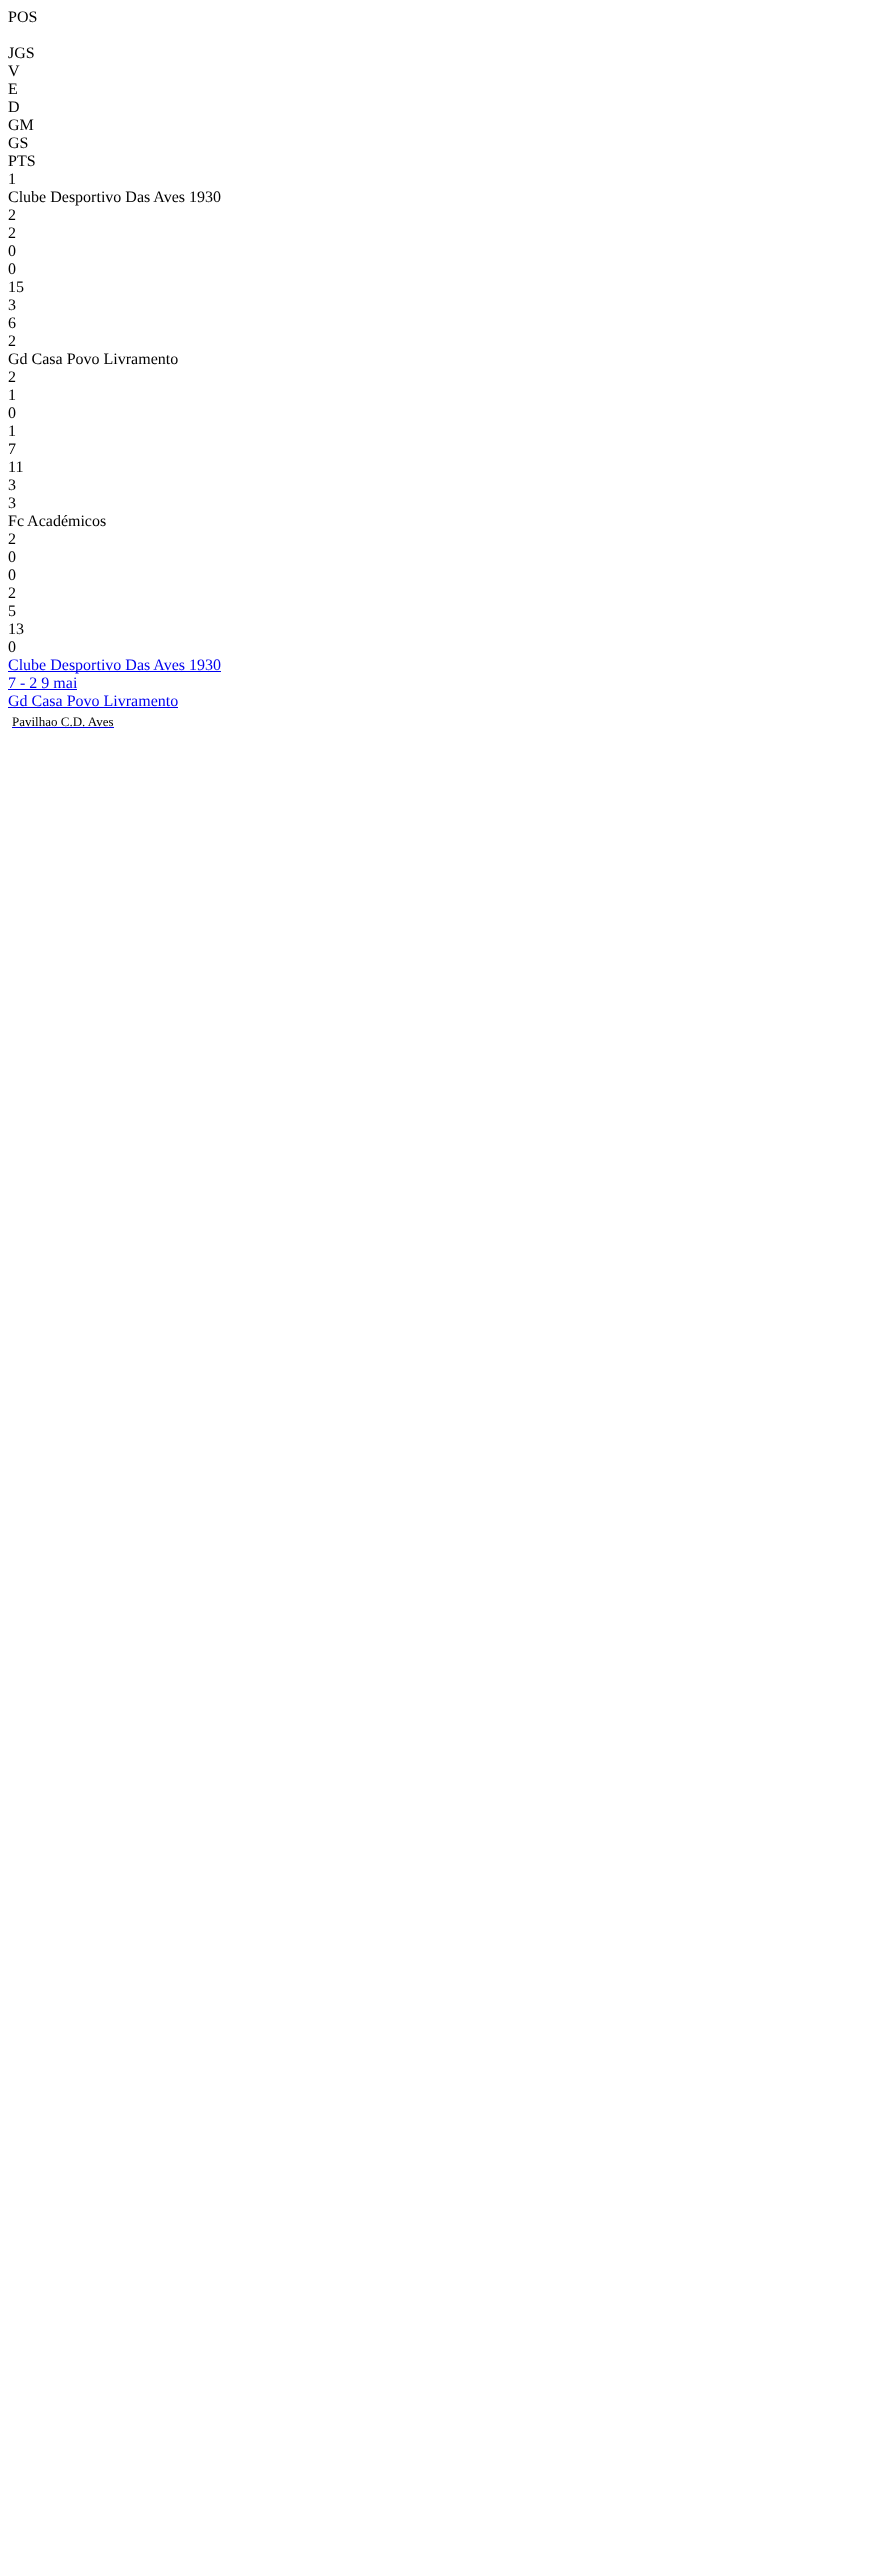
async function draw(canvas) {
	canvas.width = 894;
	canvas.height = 2569;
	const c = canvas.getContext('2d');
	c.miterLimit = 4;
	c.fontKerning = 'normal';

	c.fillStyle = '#fff';
	c.fillRect(0, 0, 894, 2569);
	c.font = '16px Liberation Serif';
	c.fillStyle = '#000';
	for (const [text, x, y] of [
		['POS', 8, 22],
		['JGS', 8, 58],
		['V', 8, 76],
		['E', 8, 94],
		['D', 8, 112],
		['GM', 8, 130],
		['GS', 8, 148],
		['PTS', 8, 166],
		['1', 8, 184],
		['Clube Desportivo Das Aves 1930', 8, 202],
		['2', 8, 220],
		['2', 8, 238],
		['0', 8, 256],
		['0', 8, 274],
		['15', 8, 292],
		['3', 8, 310],
		['6', 8, 328],
		['2', 8, 346],
		['Gd Casa Povo Livramento', 8, 364],
		['2', 8, 382],
		['1', 8, 400],
		['0', 8, 418],
		['1', 8, 436],
		['7', 8, 454],
		['11', 8, 472],
		['3', 8, 490],
		['3', 8, 508],
		['Fc Académicos', 8, 526],
		['2', 8, 544],
		['0', 8, 562],
		['0', 8, 580],
		['2', 8, 598],
		['5', 8, 616],
		['13', 8, 634],
		['0', 8, 652],
	]) {
		c.fillText(text, x, y);
	}
	c.fillStyle = '#00e';
	c.fillRect(8, 671, 213, 1);
	c.fillText('Clube Desportivo Das Aves 1930', 8, 670);
	c.fillText('7 - 2 9 mai', 8, 688);
	c.fillRect(8, 689, 69, 1);
	c.fillText('Gd Casa Povo Livramento', 8, 706);
	c.fillRect(8, 707, 170, 1);
	c.font = '13px Liberation Serif';
	c.fillStyle = '#000';
	c.fillText('Pavilhao C.D. Aves', 12, 726);
	c.fillStyle = '#00e';
	c.fillRect(12, 727, 102, 1);
}

draw(document.querySelector('canvas'));
